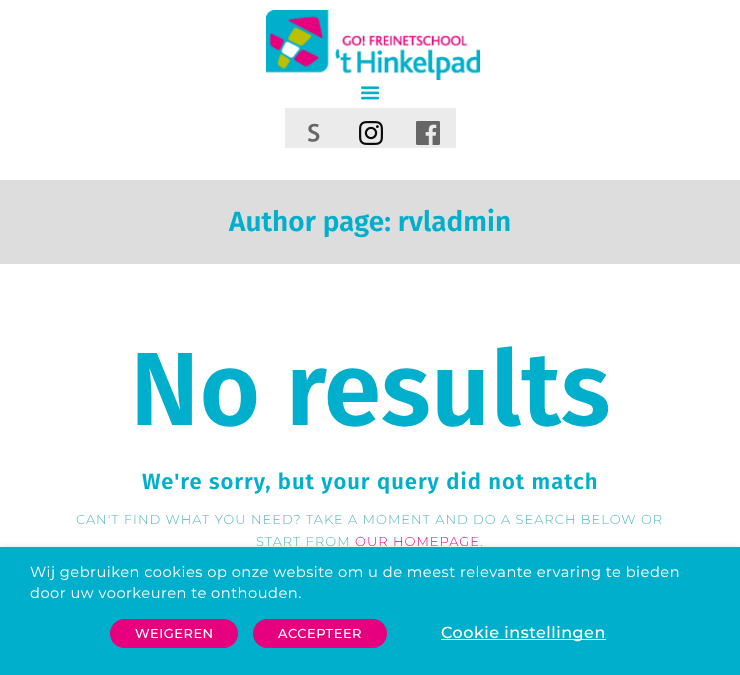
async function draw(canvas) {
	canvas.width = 740;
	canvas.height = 675;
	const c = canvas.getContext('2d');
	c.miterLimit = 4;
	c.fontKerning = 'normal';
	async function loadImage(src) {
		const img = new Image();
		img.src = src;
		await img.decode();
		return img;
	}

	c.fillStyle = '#fff';
	c.fillRect(0, 0, 740, 675);
	c.drawImage(await loadImage('img1.png'), 266, 10, 214, 70);
	c.drawImage(await loadImage('img2.png'), 361, 86, 19, 14);
	c.fillStyle = '#ebebeb';
	c.fillRect(285, 108, 171, 40);
	c.drawImage(await loadImage('img3.png'), 308, 123, 12, 19);
	c.drawImage(await loadImage('img4.png'), 359, 121, 24, 24);
	c.drawImage(await loadImage('img5.png'), 416, 121, 24, 24);
	c.fillStyle = '#ddd';
	c.fillRect(0, 180, 740, 84);
	c.font = '600 28px Fira Sans';
	c.fillStyle = '#00afcb';
	c.fillText('Author page: rvladmin', 229, 231);
	c.font = '600 104px Fira Sans';
	c.fillText('No results', 130, 425);
	c.letterSpacing = '1px';
	c.font = '600 22px Fira Sans';
	c.fillText('We\'re sorry, but your query did not match', 142, 489);
	c.font = '300 13px Montserrat';
	c.fillStyle = '#52b6bc';
	c.fillText('CAN\'T FIND WHAT YOU NEED? TAKE A MOMENT AND DO A SEARCH BELOW OR', 76, 524);
	c.fillText('START FROM', 256, 546);
	c.fillStyle = '#e6007e';
	c.fillText('OUR HOMEPAGE', 355, 546);
	c.fillStyle = '#52b6bc';
	c.fillText('.', 480, 546);
	c.fillStyle = '#00000080';
	c.filter = 'blur(5px)';
	c.beginPath();
	c.rect(0, 552, 740, 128);
	c.fill();
	c.filter = 'none';
	c.fillStyle = '#00afcb';
	c.fillRect(0, 547, 740, 128);
	c.letterSpacing = '0.5px';
	c.font = '14.65px Montserrat';
	c.fillStyle = '#fff';
	c.fillText('Wij gebruiken cookies op onze website om u de meest relevante ervaring te bieden', 30, 577);
	c.fillText('door uw voorkeuren te onthouden.', 30, 598);
	c.fillStyle = '#e6007e';
	c.beginPath();
	c.roundRect(110, 619, 128, 29, 14.5);
	c.fill();
	c.font = '500 13px Montserrat';
	c.fillStyle = '#fff';
	c.fillText('WEIGEREN', 135, 638);
	c.fillStyle = '#e6007e';
	c.beginPath();
	c.roundRect(253, 619, 134, 29, 14.5);
	c.fill();
	c.fillStyle = '#fff';
	c.fillText('ACCEPTEER', 278, 638);
	c.fillRect(441, 639, 165, 1);
	c.font = '500 16px Montserrat';
	c.fillText('Cookie instellingen', 441, 638);
}

draw(document.querySelector('canvas'));
